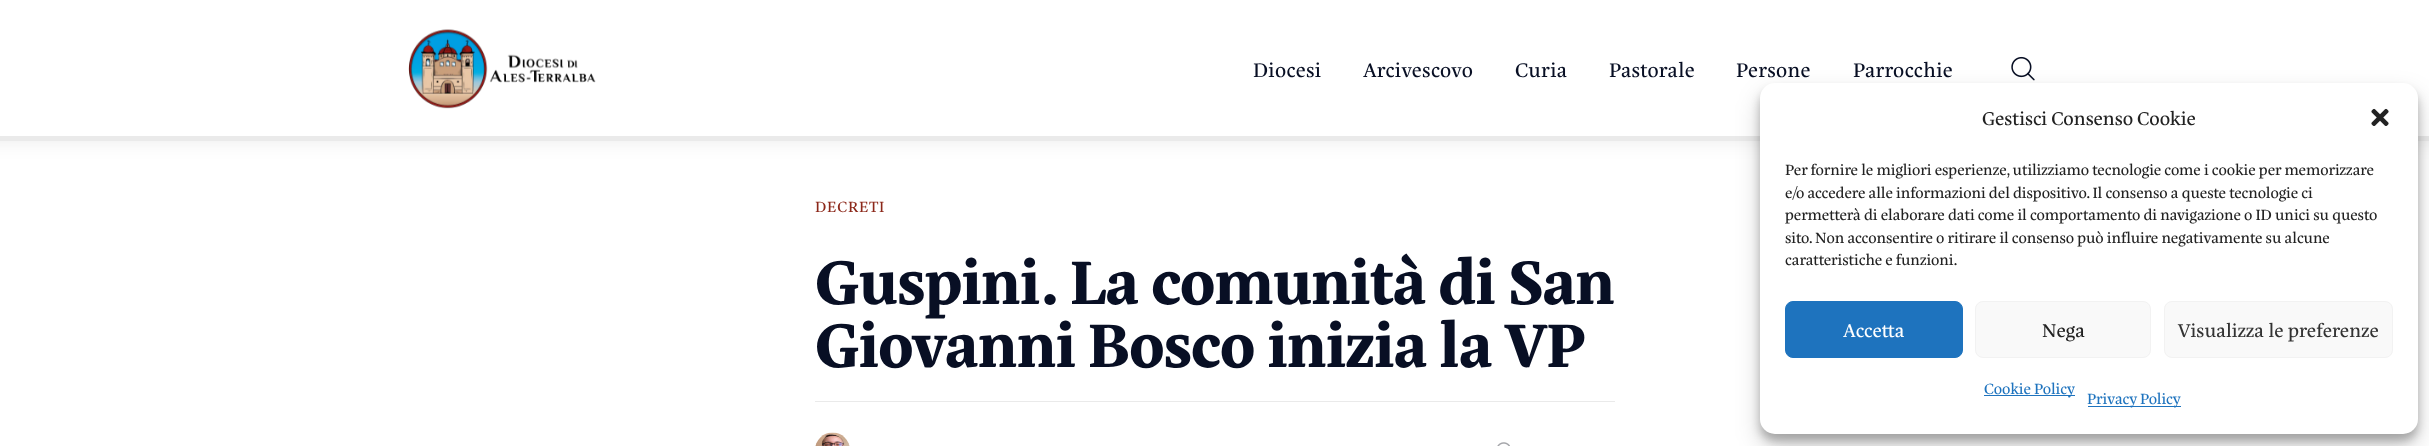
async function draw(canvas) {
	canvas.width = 2429;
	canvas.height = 446;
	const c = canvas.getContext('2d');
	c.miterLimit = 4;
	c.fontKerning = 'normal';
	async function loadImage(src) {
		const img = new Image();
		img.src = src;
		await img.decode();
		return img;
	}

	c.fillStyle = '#fff';
	c.fillRect(0, 0, 2429, 446);
	c.fillStyle = '#00000014';
	c.filter = 'blur(10px)';
	c.beginPath();
	c.rect(-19, 4, 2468, 137);
	c.fill();
	c.filter = 'none';
	c.fillStyle = '#fff';
	c.fillRect(0, 0, 2429, 136);
	c.drawImage(await loadImage('img1.png'), 408, 29, 188, 80);
	c.letterSpacing = '0.25px';
	c.font = '20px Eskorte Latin';
	c.fillStyle = '#080f24';
	for (const [text, x, y] of [
		['Diocesi', 1253, 77],
		['Arcivescovo', 1363, 77],
		['Curia', 1515, 77],
		['Pastorale', 1609, 77],
		['Persone', 1736, 77],
		['Parrocchie', 1853, 77],
	]) {
		c.fillText(text, x, y);
	}
	c.drawImage(await loadImage('img2.png'), 2011, 56, 24, 25);
	c.fillStyle = '#eaeaea';
	c.fillRect(0, 136, 2429, 5);
	c.letterSpacing = '1px';
	c.font = '15px Eskorte Latin';
	c.fillStyle = '#8c281a';
	c.fillText('DECRETI', 815, 212);
	c.letterSpacing = '-1.25px';
	c.font = 'bold 62.5px Eskorte Latin';
	c.fillStyle = '#080f24';
	c.fillText('Guspini. La comunità di San', 815, 304);
	c.fillText('Giovanni Bosco inizia la VP', 815, 367);
	c.fillStyle = '#eaeaea';
	c.fillRect(815, 401, 800, 1);
	c.drawImage(await loadImage('img3.png'), 815, 432, 35, 14);
	c.drawImage(await loadImage('img4.png'), 1497, 442, 13, 4);
	c.fillStyle = '#0000003b';
	c.filter = 'blur(4px)';
	c.beginPath();
	c.roundRect(1760, 90, 658, 351, 15);
	c.fill();
	c.filter = 'none';
	c.fillStyle = '#00000030';
	c.filter = 'blur(12.5px)';
	c.beginPath();
	c.roundRect(1760, 95, 658, 351, 15);
	c.fill();
	c.filter = 'none';
	c.fillStyle = '#fff';
	c.beginPath();
	c.roundRect(1760, 83, 658, 351, 15);
	c.fill();
	c.letterSpacing = '-0.12px';
	c.font = '18.75px Eskorte Latin';
	c.fillStyle = '#222';
	c.fillText('Gestisci Consenso Cookie', 1982, 125);
	c.drawImage(await loadImage('img5.png'), 2371, 108, 18, 18);
	c.font = '15px Eskorte Latin';
	for (const [text, x, y] of [
		['Per fornire le migliori esperienze, utilizziamo tecnologie come i cookie per memorizzare', 1785, 175],
		['e/o accedere alle informazioni del dispositivo. Il consenso a queste tecnologie ci', 1785, 198],
		['permetterà di elaborare dati come il comportamento di navigazione o ID unici su questo', 1785, 220],
		['sito. Non acconsentire o ritirare il consenso può influire negativamente su alcune', 1785, 243],
		['caratteristiche e funzioni.', 1785, 265],
	]) {
		c.fillText(text, x, y);
	}
	c.fillStyle = '#1e73be';
	c.beginPath();
	c.roundRect(1785.5, 301.5, 177, 56, 7.5);
	c.fill();
	c.strokeStyle = '#1e73be';
	c.stroke();
	c.letterSpacing = '0px';
	c.font = '18.75px Eskorte Latin';
	c.fillStyle = '#fff';
	c.fillText('Accetta', 1843, 337);
	c.fillStyle = '#f9f9f9';
	c.beginPath();
	c.roundRect(1975.5, 301.5, 175, 56, 7.5);
	c.fill();
	c.strokeStyle = '#f2f2f2';
	c.stroke();
	c.fillStyle = '#222';
	c.fillText('Nega', 2042, 337);
	c.fillStyle = '#f9f9f9';
	c.beginPath();
	c.roundRect(2164.5, 301.5, 228, 56, 7.5);
	c.fill();
	c.stroke();
	c.fillStyle = '#333';
	c.fillText('Visualizza le preferenze', 2178, 337);
	c.fillStyle = '#1e73be';
	c.fillRect(1984, 395, 91, 1);
	c.letterSpacing = '-0.12px';
	c.font = '15px Eskorte Latin';
	c.fillText('Cookie Policy', 1984, 394);
	c.fillRect(2088, 406, 93, 1);
	c.fillText('Privacy Policy', 2087, 404);
}

draw(document.querySelector('canvas'));
